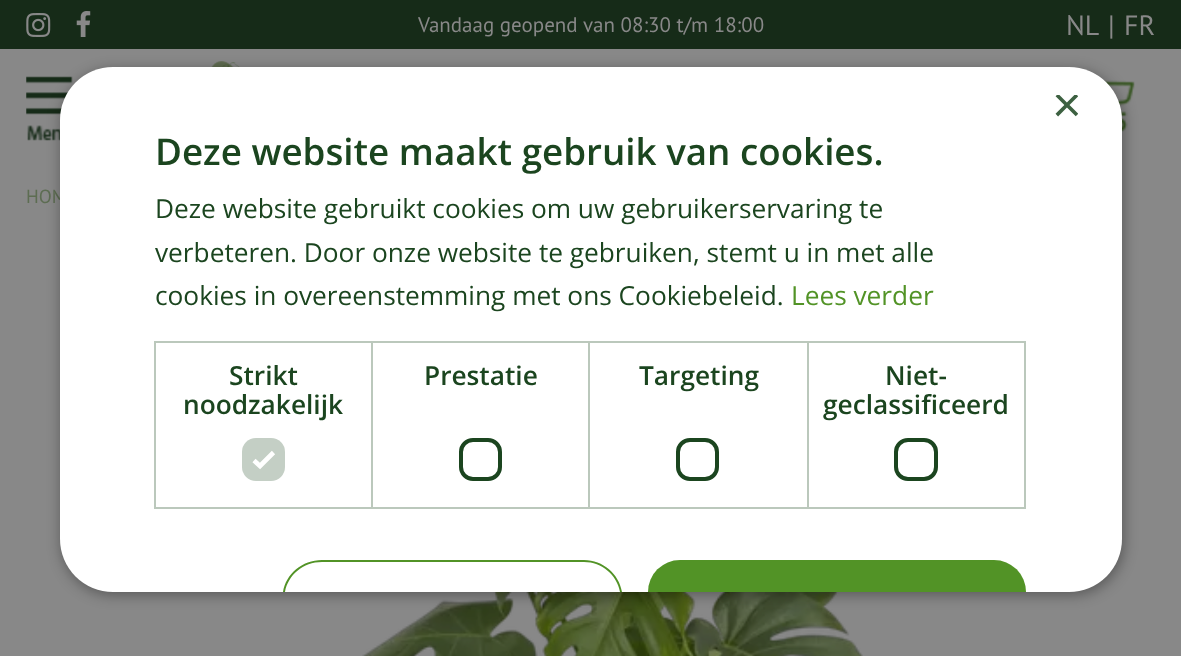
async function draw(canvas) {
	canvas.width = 1181;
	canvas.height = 656;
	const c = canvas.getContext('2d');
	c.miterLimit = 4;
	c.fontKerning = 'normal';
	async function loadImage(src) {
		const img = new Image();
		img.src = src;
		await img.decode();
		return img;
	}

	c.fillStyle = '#888';
	c.fillRect(0, 0, 1181, 656);
	c.fillStyle = '#162b18';
	c.fillRect(0, 0, 1181, 49);
	c.drawImage(await loadImage('img1.png'), 26, 13, 25, 24);
	c.drawImage(await loadImage('img2.png'), 76, 11, 15, 26);
	c.font = '21px PT Sans';
	c.fillStyle = '#888';
	c.fillText('Vandaag geopend van 08:30 t/m 18:00', 418, 32);
	c.font = '28px PT Sans';
	for (const [text, x, y] of [
		['NL', 1066, 35],
		['|', 1108, 35],
		['FR', 1124, 35],
	]) {
		c.fillText(text, x, y);
	}
	c.drawImage(await loadImage('img3.png'), 211, 61, 29, 6);
	c.drawImage(await loadImage('img4.png'), 26, 76, 47, 65);
	c.drawImage(await loadImage('img5.png'), 1103, 80, 32, 52);
	c.drawImage(await loadImage('img6.png'), 362, 592, 501, 64);
	c.font = '19px PT Sans';
	c.fillStyle = '#5d6d52';
	c.fillText('HOM', 26, 203);
	c.fillStyle = '#00000059';
	c.filter = 'blur(7px)';
	c.beginPath();
	c.roundRect(61, 70, 1063, 525, 53);
	c.fill();
	c.filter = 'none';
	c.fillStyle = '#fff';
	c.beginPath();
	c.roundRect(60, 67, 1062, 525, 53);
	c.fill();
	c.save();
	c.beginPath();
	c.rect(1052, 95, 26, 26);
	c.clip();
	c.font = '51px Liberation Sans';
	c.fillStyle = '#3d6141';
	c.fillText('×', 1052, 122);
	c.restore();
	c.font = '600 36.75px Open Sans';
	c.fillStyle = '#1b451f';
	c.fillText('Deze website maakt gebruik van cookies.', 155, 165);
	c.font = '26.25px Open Sans';
	for (const [text, x, y] of [
		['Deze website gebruikt cookies om uw gebruikerservaring te', 155, 218],
		['verbeteren. Door onze website te gebruiken, stemt u in met alle', 155, 262],
		['cookies in overeenstemming met ons Cookiebeleid.', 155, 305],
	]) {
		c.fillText(text, x, y);
	}
	c.fillStyle = '#529326';
	c.fillText('Lees verder', 791, 305);
	c.strokeStyle = '#bbc8bc';
	c.lineWidth = 2;
	c.strokeRect(155, 342, 217, 166);
	c.font = '600 26.25px Open Sans';
	c.fillStyle = '#1b451f';
	c.fillText('Strikt', 229, 385);
	c.fillText('noodzakelijk', 183, 414);
	c.fillStyle = '#c4cfc5';
	c.beginPath();
	c.roundRect(242, 438, 43, 43, 14);
	c.fill();
	c.beginPath();
	c.moveTo(254, 460.5);
	c.lineTo(260, 466);
	c.lineTo(273.5, 452.5);
	c.strokeStyle = '#fff';
	c.lineWidth = 4.6;
	c.stroke();
	c.strokeStyle = '#bbc8bc';
	c.lineWidth = 2;
	c.strokeRect(372, 342, 217, 166);
	c.fillStyle = '#1b451f';
	c.fillText('Prestatie', 424, 385);
	c.beginPath();
	c.roundRect(461, 440, 39, 39, 12);
	c.strokeStyle = '#1b451f';
	c.lineWidth = 4;
	c.stroke();
	c.strokeStyle = '#bbc8bc';
	c.lineWidth = 2;
	c.strokeRect(589, 342, 219, 166);
	c.fillText('Targeting', 639, 385);
	c.beginPath();
	c.roundRect(678, 440, 39, 39, 12);
	c.strokeStyle = '#1b451f';
	c.lineWidth = 4;
	c.stroke();
	c.strokeStyle = '#bbc8bc';
	c.lineWidth = 2;
	c.strokeRect(808, 342, 217, 166);
	c.fillText('Niet-', 885, 385);
	c.fillText('geclassificeerd', 823, 414);
	c.beginPath();
	c.roundRect(896, 440, 40, 39, 12);
	c.strokeStyle = '#1b451f';
	c.lineWidth = 4;
	c.stroke();
	c.fillStyle = '#fff';
	c.beginPath();
	c.roundRect(282, 560, 341, 32, [39.5, 39.5, 0, 0]);
	c.fill();
	c.fillStyle = '#529326';
	c.beginPath();
	c.moveTo(322, 560);
	c.bezierCurveTo(302, 560, 286, 574, 283, 592);
	c.lineTo(285, 592);
	c.bezierCurveTo(288, 575, 303, 562, 322, 562);
	c.lineTo(584, 562);
	c.bezierCurveTo(602, 562, 617, 575, 620, 592);
	c.lineTo(622, 592);
	c.bezierCurveTo(619, 574, 603, 560, 584, 560);
	c.closePath();
	c.fill();
	c.beginPath();
	c.roundRect(648, 560, 378, 32, [39.5, 39.5, 0, 0]);
	c.fill();
}

draw(document.querySelector('canvas'));
